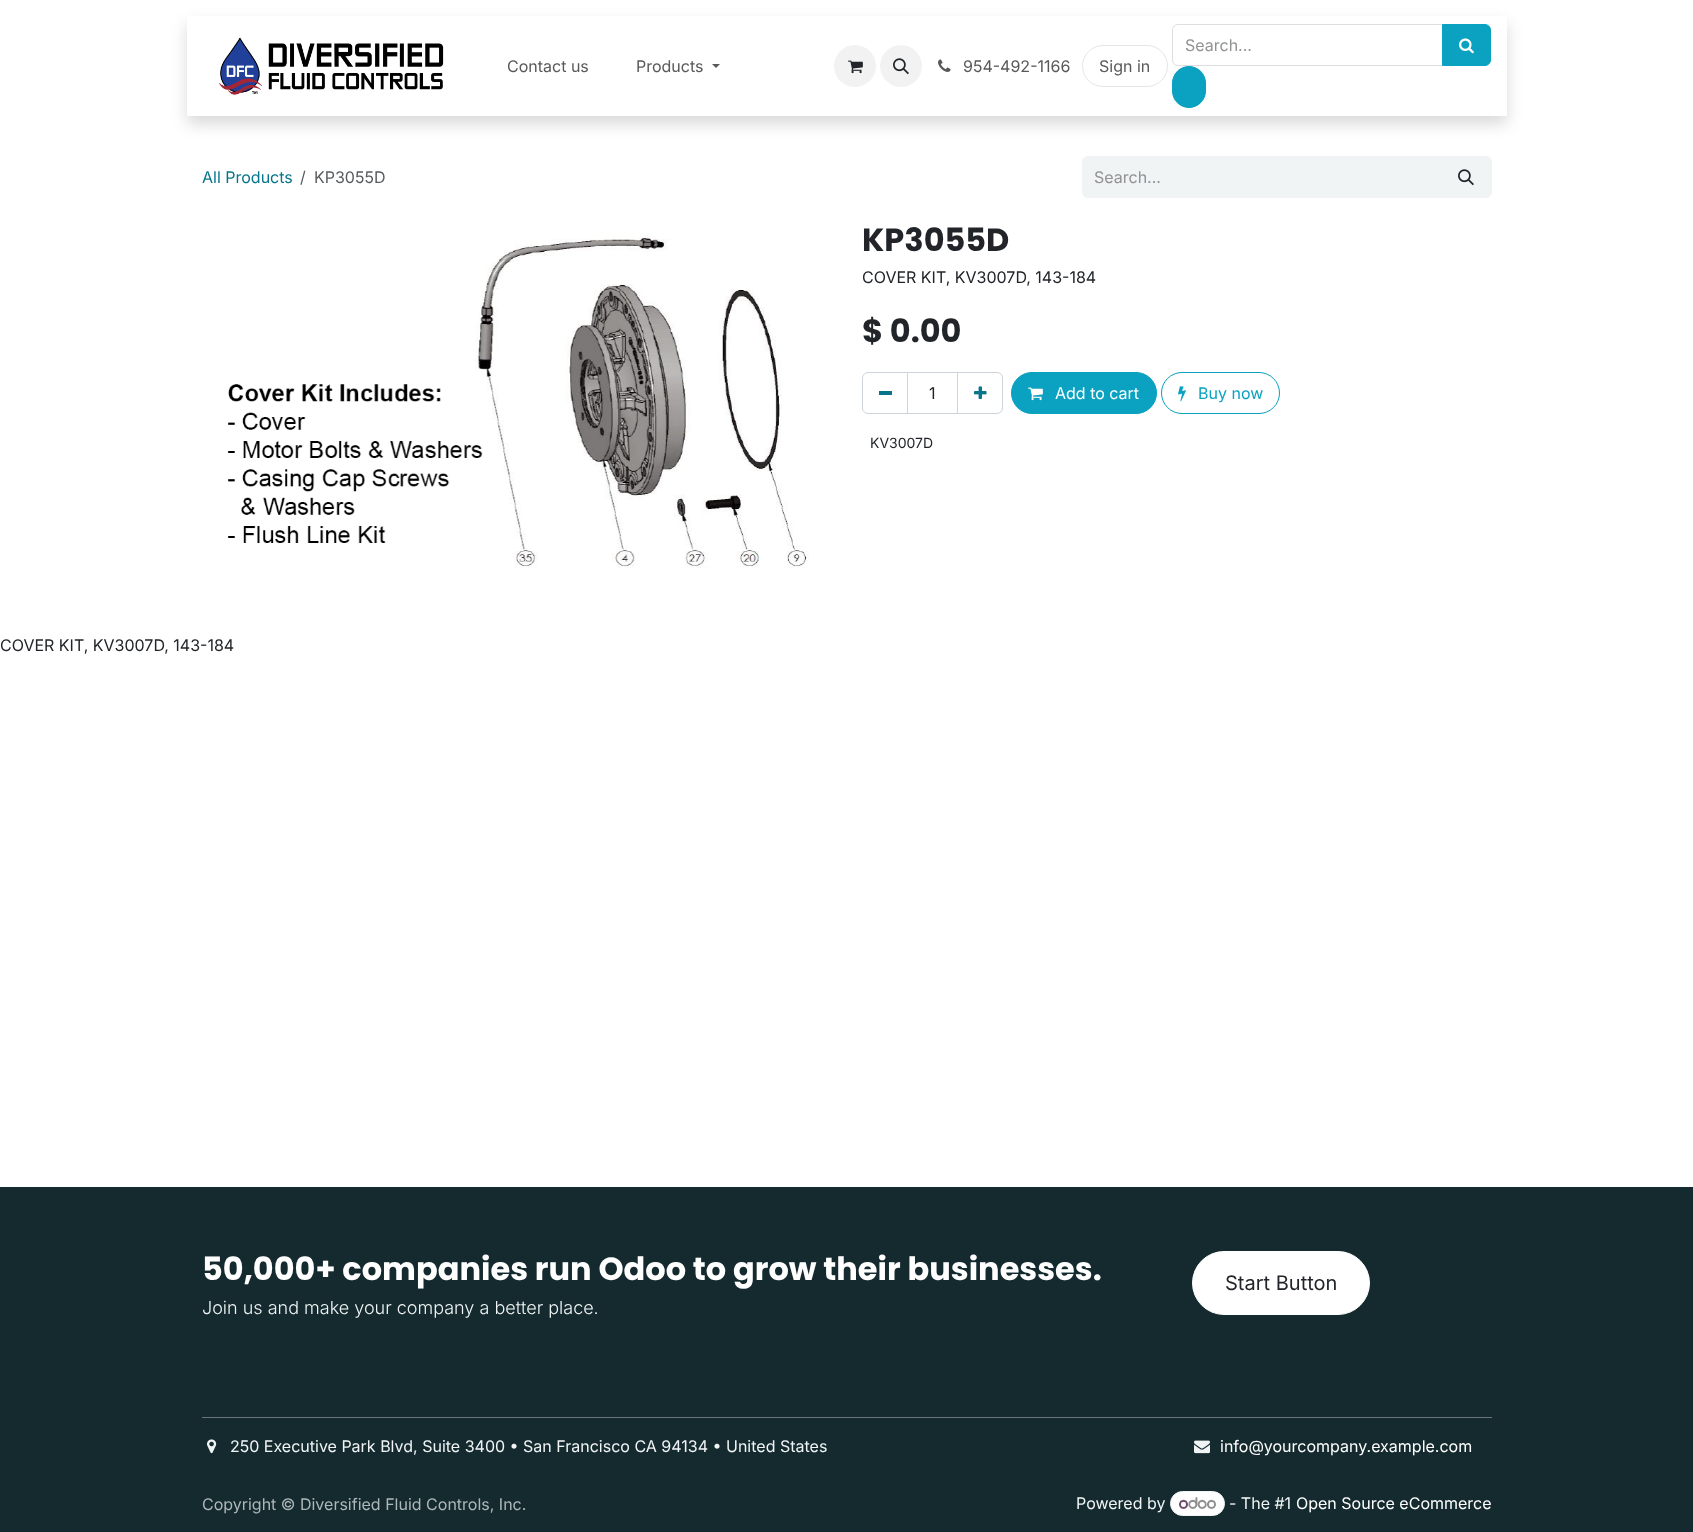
async function draw(canvas) {
	canvas.width = 1693;
	canvas.height = 1532;
	const c = canvas.getContext('2d');
	c.miterLimit = 4;
	c.fontKerning = 'normal';
	async function loadImage(src) {
		const img = new Image();
		img.src = src;
		await img.decode();
		return img;
	}

	c.fillStyle = '#fff';
	c.fillRect(0, 0, 1693, 1532);
	c.fillStyle = '#00000026';
	c.filter = 'blur(8px)';
	c.beginPath();
	c.roundRect(187, 24, 1320, 100, 1);
	c.fill();
	c.filter = 'none';
	c.fillStyle = '#fff';
	c.beginPath();
	c.roundRect(187, 16, 1320, 100, 1);
	c.fill();
	c.drawImage(await loadImage('img1.png'), 219, 37, 225, 58);
	c.font = '16px Inter';
	c.fillStyle = '#595959';
	c.fillText('Contact us', 507, 72);
	c.fillText('Products', 636, 72);
	c.beginPath();
	c.moveTo(712, 64);
	c.lineTo(720, 64);
	c.lineTo(716, 68);
	c.closePath();
	c.fill();
	c.fillStyle = '#f2f2f2';
	c.beginPath();
	c.arc(855, 66, 21, 0, 2 * Math.PI);
	c.fill();
	c.drawImage(await loadImage('img2.png'), 848, 60, 15, 14);
	c.beginPath();
	c.arc(901, 66, 21, 0, 2 * Math.PI);
	c.fill();
	c.drawImage(await loadImage('img3.png'), 893, 58, 16, 17);
	c.drawImage(await loadImage('img4.png'), 938, 59, 13, 13);
	c.fillStyle = '#595959';
	c.fillText('954-492-1166', 963, 72);
	c.beginPath();
	c.roundRect(1082.5, 45.5, 85, 41, 20.5);
	c.strokeStyle = '#e6e6e6';
	c.stroke();
	c.fillText('Sign in', 1099, 72);
	c.beginPath();
	c.roundRect(1172.5, 24.5, 270, 41, [5.5, 0, 0, 5.5]);
	c.strokeStyle = '#dededf';
	c.stroke();
	c.fillStyle = '#909294';
	c.fillText('Search...', 1185, 51);
	c.fillStyle = '#0aa2c0';
	c.beginPath();
	c.roundRect(1442.5, 24.5, 48, 41, [0, 5.5, 5.5, 0]);
	c.fill();
	c.strokeStyle = '#0aa2c0';
	c.stroke();
	c.drawImage(await loadImage('img5.png'), 1459, 38, 15, 16);
	c.beginPath();
	c.roundRect(1172.5, 66.5, 33, 41, 16.5);
	c.fill();
	c.stroke();
	c.fillStyle = '#07758b';
	c.fillText('All Products', 202, 183);
	c.fillStyle = '#595c5f';
	c.fillText('/', 300, 183);
	c.fillText('KP3055D', 314, 183);
	c.fillStyle = '#f0f4f5';
	c.beginPath();
	c.roundRect(1082, 156, 360, 42, [6, 0, 0, 6]);
	c.fill();
	c.fillStyle = '#909294';
	c.fillText('Search...', 1094, 183);
	c.fillStyle = '#f0f4f5';
	c.beginPath();
	c.roundRect(1441.5, 156.5, 50, 41, [0, 5.5, 5.5, 0]);
	c.fill();
	c.strokeStyle = '#f0f4f5';
	c.stroke();
	c.drawImage(await loadImage('img6.png'), 1458, 169, 16, 17);
	c.drawImage(await loadImage('img7.png'), 228, 233, 581, 335);
	c.font = 'bold 32px Poppins';
	c.fillStyle = '#212529';
	c.fillText('KP3055D', 862, 251);
	c.font = '16px Inter';
	c.fillText('COVER KIT, KV3007D, 143-184', 862, 283);
	c.font = 'bold 32px Poppins';
	c.fillText('$ 0.00', 862, 342);
	c.strokeStyle = '#ced4da';
	c.strokeRect(907.5, 372.5, 50, 41);
	c.beginPath();
	c.roundRect(862.5, 372.5, 45, 41, [5.5, 0, 0, 5.5]);
	c.stroke();
	c.fillStyle = '#07758b';
	c.fillRect(879, 391, 13, 4);
	c.font = '16px Inter';
	c.fillStyle = '#212529';
	c.fillText('1', 929, 399);
	c.beginPath();
	c.roundRect(957.5, 372.5, 45, 41, [0, 5.5, 5.5, 0]);
	c.stroke();
	c.drawImage(await loadImage('img8.png'), 974, 386, 13, 13);
	c.fillStyle = '#0aa2c0';
	c.beginPath();
	c.roundRect(1011.5, 372.5, 145, 41, 20.5);
	c.fill();
	c.strokeStyle = '#0aa2c0';
	c.stroke();
	c.drawImage(await loadImage('img9.png'), 1028, 387, 15, 14);
	c.fillStyle = '#fff';
	c.fillText('Add to cart', 1055, 399);
	c.beginPath();
	c.roundRect(1161.5, 372.5, 118, 41, 20.5);
	c.stroke();
	c.drawImage(await loadImage('img10.png'), 1178, 386, 8, 16);
	c.fillStyle = '#0aa2c0';
	c.fillText('Buy now', 1198, 399);
	c.font = '14px Inter';
	c.fillStyle = '#212529';
	c.fillText('KV3007D', 870, 448);
	c.font = '16px Inter';
	c.fillText('COVER KIT, KV3007D, 143-184', 0, 651);
	c.fillStyle = '#142a2e';
	c.fillRect(0, 1187, 1693, 345);
	c.font = 'bold 32px Poppins';
	c.fillStyle = '#fff';
	c.fillText('50,000+ companies run Odoo to grow their businesses.', 202, 1280);
	c.font = '300 18px Inter';
	c.fillStyle = '#f0f4f5';
	c.fillText('Join us and make your company a better place.', 202, 1314);
	c.fillStyle = '#fff';
	c.beginPath();
	c.roundRect(1192.5, 1251.5, 177, 63, 31.5);
	c.fill();
	c.strokeStyle = '#fff';
	c.stroke();
	c.font = '20px Inter';
	c.fillStyle = '#212529';
	c.fillText('Start Button', 1225, 1290);
	c.fillStyle = '#6c757d';
	c.fillRect(202, 1417, 1290, 1);
	c.drawImage(await loadImage('img11.png'), 207, 1439, 10, 15);
	c.font = '16px Inter';
	c.fillStyle = '#f0f4f5';
	c.fillText('250 Executive Park Blvd, Suite 3400 • San Francisco CA 94134 • United States', 230, 1452);
	c.drawImage(await loadImage('img12.png'), 1194, 1440, 16, 14);
	c.fillStyle = '#fff';
	c.fillText('info@yourcompany.example.com', 1220, 1452);
	c.fillStyle = '#aeb7b9';
	c.fillText('Copyright © Diversified Fluid Controls, Inc.', 202, 1510);
	c.fillStyle = '#f0f4f5';
	c.fillText('Powered by', 1076, 1509);
	c.fillStyle = '#fefefe';
	c.beginPath();
	c.roundRect(1170.5, 1491.5, 54, 24, 12);
	c.fill();
	c.strokeStyle = '#f0f4f5';
	c.stroke();
	c.drawImage(await loadImage('img13.png'), 1179, 1497, 37, 12);
	c.fillStyle = '#f0f4f5';
	c.fillText('- The #1', 1229, 1509);
	c.fillStyle = '#fff';
	c.fillText('Open Source eCommerce', 1296, 1509);
}

draw(document.querySelector('canvas'));
